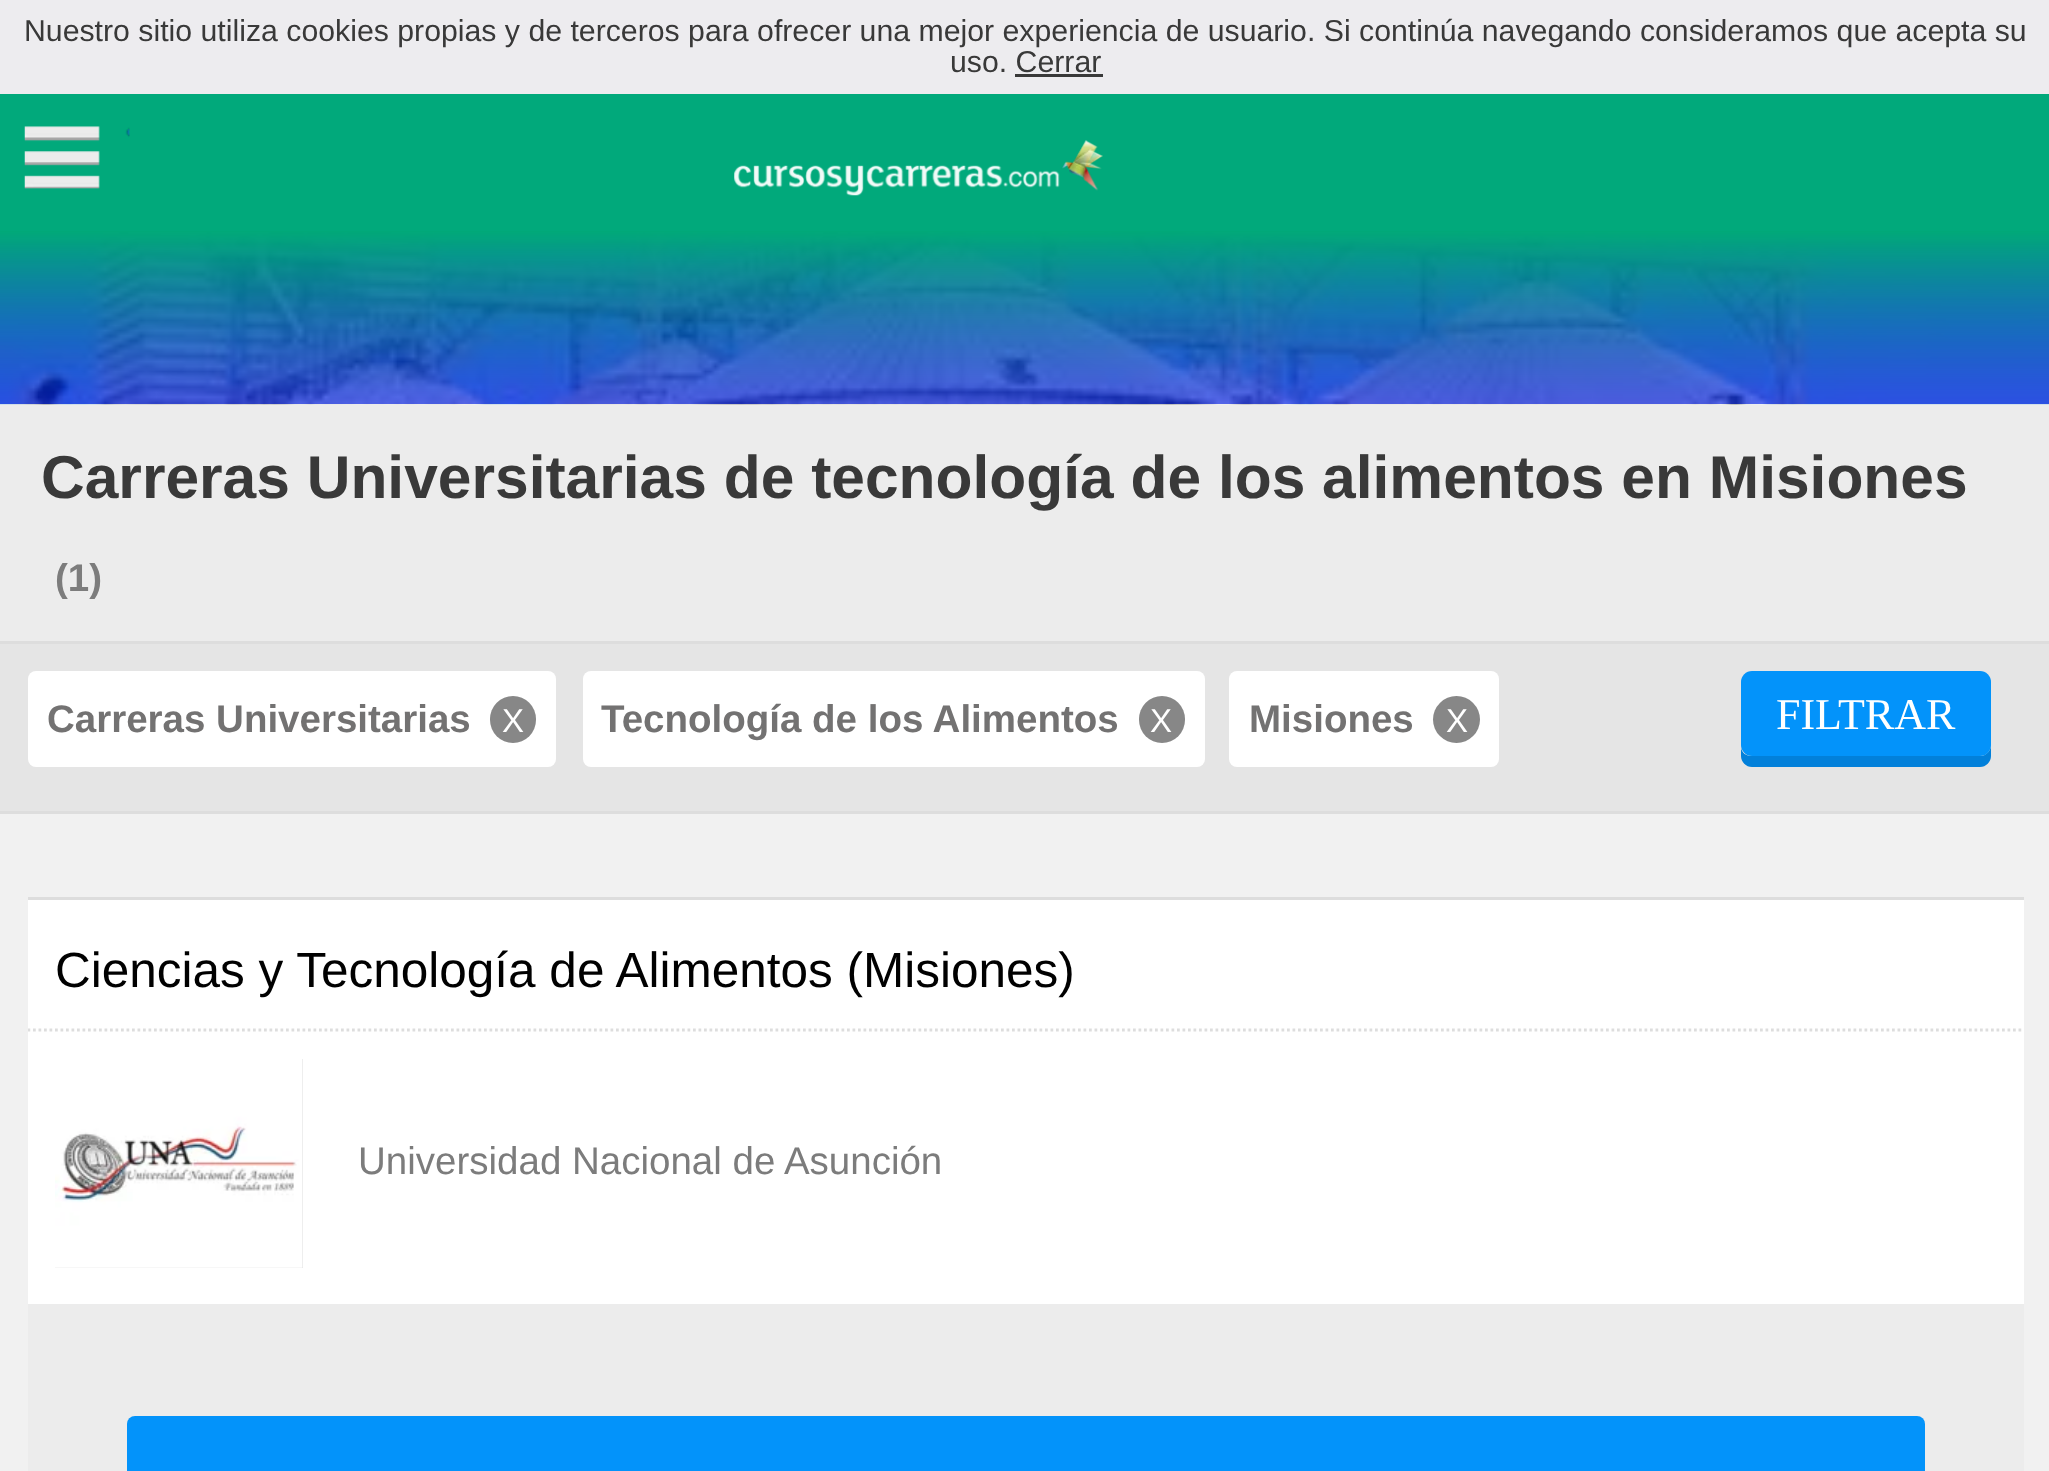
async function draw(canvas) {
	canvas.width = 2049;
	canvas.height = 1471;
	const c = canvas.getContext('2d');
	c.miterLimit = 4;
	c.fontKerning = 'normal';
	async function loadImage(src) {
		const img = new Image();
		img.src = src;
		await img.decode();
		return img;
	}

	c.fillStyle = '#ececec';
	c.fillRect(0, 0, 2049, 1471);
	c.fillStyle = '#edecef';
	c.fillRect(0, 0, 2049, 94);
	c.font = '30.25px Liberation Sans';
	c.fillStyle = '#393939';
	c.fillText('Nuestro sitio utiliza cookies propias y de terceros para ofrecer una mejor experiencia de usuario. Si continúa navegando consideramos que acepta su', 24, 41);
	c.fillText('uso. Cerrar', 950, 72);
	c.fillRect(1015, 74, 88, 3);
	c.fillStyle = '#01a97b';
	c.fillRect(0, 94, 2049, 137);
	c.drawImage(await loadImage('img1.png'), 24, 126, 106, 64);
	c.drawImage(await loadImage('img2.png'), 734, 140, 369, 56);
	c.drawImage(await loadImage('img3.png'), 0, 231, 2049, 174);
	c.font = 'bold 60.5px Liberation Sans';
	c.fillStyle = '#393939';
	c.fillText('Carreras Universitarias de tecnología de los alimentos en Misiones', 41, 498);
	c.font = 'bold 38.5px Liberation Sans';
	c.fillStyle = '#7c7c7c';
	c.fillText('(1)', 55, 591);
	for (const [x, y, w, h, color] of [
		[0, 641, 2049, 3, '#ddd'],
		[0, 644, 2049, 167, '#e5e5e5'],
		[0, 811, 2049, 3, '#ddd'],
	]) {
		c.fillStyle = color;
		c.fillRect(x, y, w, h);
	}
	c.fillStyle = '#fff';
	c.beginPath();
	c.roundRect(28, 671, 528, 96, 8);
	c.fill();
	c.fillStyle = '#737272';
	c.fillText('Carreras Universitarias', 47, 732);
	c.fillStyle = '#878787';
	c.beginPath();
	c.roundRect(490, 696, 46, 47, 23);
	c.fill();
	c.font = '33px Liberation Sans';
	c.fillStyle = '#fff';
	c.fillText('X', 502, 732);
	c.beginPath();
	c.roundRect(583, 671, 622, 96, 8);
	c.fill();
	c.font = 'bold 38.5px Liberation Sans';
	c.fillStyle = '#737272';
	c.fillText('Tecnología de los Alimentos', 601, 732);
	c.fillStyle = '#878787';
	c.beginPath();
	c.roundRect(1139, 696, 46, 47, 23);
	c.fill();
	c.font = '33px Liberation Sans';
	c.fillStyle = '#fff';
	c.fillText('X', 1150, 732);
	c.beginPath();
	c.roundRect(1229, 671, 270, 96, 8);
	c.fill();
	c.font = 'bold 38.5px Liberation Sans';
	c.fillStyle = '#737272';
	c.fillText('Misiones', 1249, 732);
	c.fillStyle = '#878787';
	c.beginPath();
	c.arc(1456.5, 719.5, 23.5, 0, 2 * Math.PI);
	c.fill();
	c.font = '33px Liberation Sans';
	c.fillStyle = '#fff';
	c.fillText('X', 1446, 732);
	c.fillStyle = '#0280da';
	c.beginPath();
	c.moveTo(1741, 748);
	c.lineTo(1741, 756);
	c.bezierCurveTo(1741, 762, 1746, 767, 1752, 767);
	c.lineTo(1980, 767);
	c.bezierCurveTo(1986, 767, 1991, 762, 1991, 756);
	c.lineTo(1991, 745);
	c.bezierCurveTo(1991, 751, 1986, 756, 1980, 756);
	c.lineTo(1752, 756);
	c.bezierCurveTo(1746, 756, 1742, 753, 1741, 748);
	c.closePath();
	c.fill();
	c.fillStyle = '#0393fa';
	c.beginPath();
	c.roundRect(1741, 671, 250, 85, 11);
	c.fill();
	c.font = '44px Liberation Serif';
	c.fillStyle = '#fff';
	c.fillText('FILTRAR', 1776, 729);
	for (const [x, y, w, h, color] of [
		[0, 814, 2049, 657, '#f1f1f1'],
		[28, 900, 1996, 404, '#fff'],
		[28, 897, 1996, 3, '#ddd'],
	]) {
		c.fillStyle = color;
		c.fillRect(x, y, w, h);
	}
	c.font = '49.5px Liberation Sans';
	c.fillStyle = '#000';
	c.fillText('Ciencias y Tecnología de Alimentos (Misiones)', 55, 987);
	c.save();
	c.beginPath();
	c.rect(28, 899, 1996, 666);
	c.clip();
	c.beginPath();
	c.moveTo(27.5, 1030);
	c.lineTo(2024, 1030);
	c.strokeStyle = '#ddd';
	c.lineWidth = 2.8;
	c.setLineDash([2.75, 2.75]);
	c.stroke();
	c.restore();
	c.fillStyle = '#ddd';
	c.fillRect(55, 1059, 248, 209);
	c.drawImage(await loadImage('img4.png'), 55, 1059, 248, 209);
	c.font = '38.5px Liberation Sans';
	c.fillStyle = '#7c7c7c';
	c.fillText('Universidad Nacional de Asunción', 358, 1174);
	c.fillStyle = '#ececec';
	c.fillRect(28, 1304, 1996, 167);
	c.fillStyle = '#0393fa';
	c.beginPath();
	c.roundRect(127, 1416, 1798, 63, 8);
	c.fill();
}

draw(document.querySelector('canvas'));
